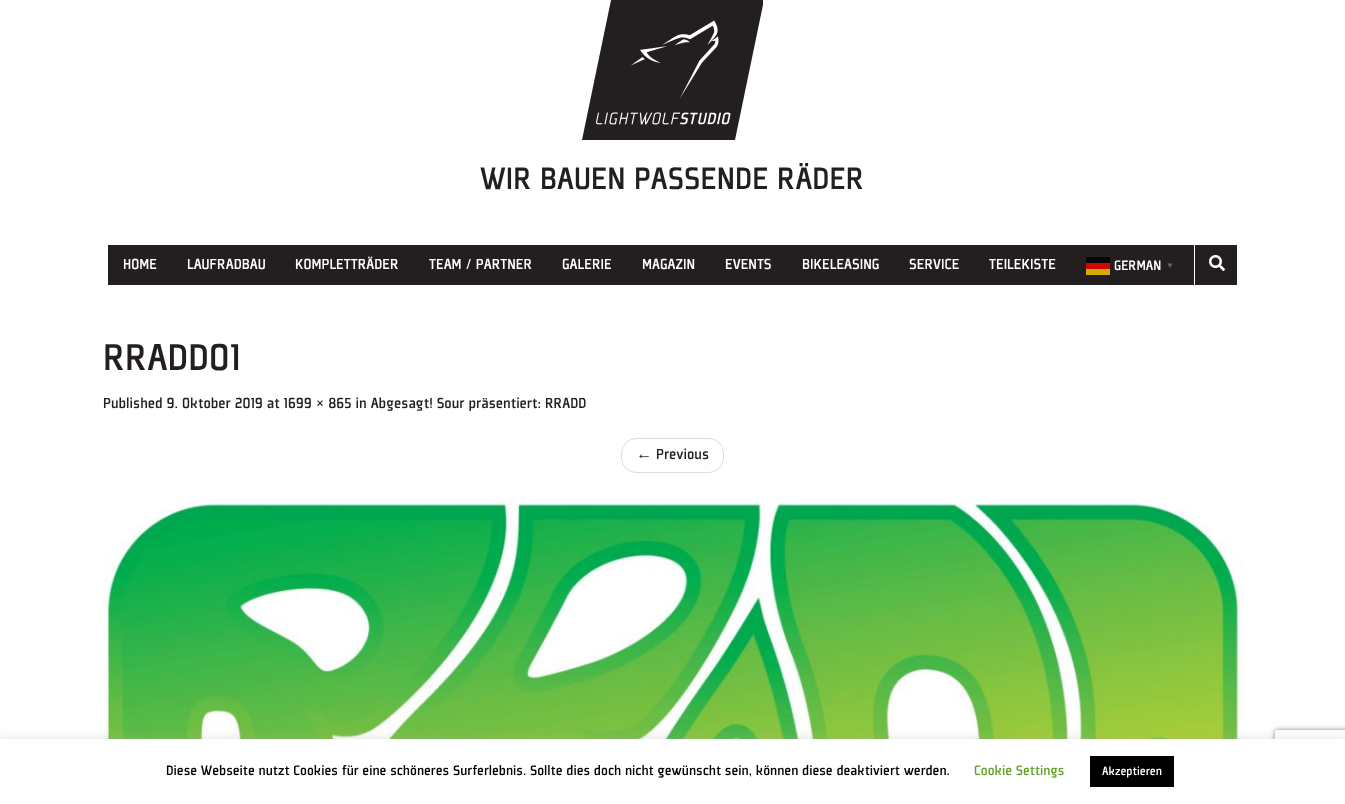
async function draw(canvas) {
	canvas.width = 1345;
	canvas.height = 804;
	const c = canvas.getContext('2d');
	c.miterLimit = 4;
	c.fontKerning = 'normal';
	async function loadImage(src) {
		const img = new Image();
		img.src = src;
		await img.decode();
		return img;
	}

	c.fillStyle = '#fff';
	c.fillRect(0, 0, 1345, 804);
	c.drawImage(await loadImage('img1.png'), 582, 0, 181, 140);
	c.font = '500 34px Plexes';
	c.fillStyle = '#231f20';
	c.fillText('WIR BAUEN PASSENDE RÄDER', 480, 189);
	c.fillRect(108, 245, 1086, 40);
	c.font = '500 16px Plexes';
	c.fillStyle = '#fff';
	for (const [text, x, y] of [
		['HOME', 123, 269],
		['LAUFRADBAU', 187, 269],
		['KOMPLETTRÄDER', 295, 269],
		['TEAM / PARTNER', 429, 269],
		['GALERIE', 562, 269],
		['MAGAZIN', 642, 269],
		['EVENTS', 725, 269],
		['BIKELEASING', 802, 269],
		['SERVICE', 909, 269],
		['TEILEKISTE', 989, 269],
	]) {
		c.fillText(text, x, y);
	}
	c.fillStyle = '#070606';
	c.fillRect(1086, 257, 24, 6);
	c.font = '500 15px Plexes';
	c.fillStyle = '#fff';
	c.fillText('GERMAN', 1114, 270);
	c.fillStyle = '#d30606';
	c.fillRect(1086, 263, 24, 6);
	c.font = 'bold 8px Liberation Sans';
	c.fillStyle = '#666';
	c.fillText('▼', 1166, 268);
	c.fillStyle = '#d3a906';
	c.fillRect(1086, 269, 24, 6);
	c.fillStyle = '#231f20';
	c.fillRect(1195, 245, 42, 40);
	c.drawImage(await loadImage('img2.png'), 1209, 255, 16, 16);
	c.font = '500 41px Plexes';
	c.fillText('RRADD01', 103, 370);
	c.font = '500 16px Plexes';
	c.fillText('Published 9. Oktober 2019 at 1699 × 865 in Abgesagt! Sour präsentiert: RRADD', 103, 408);
	c.beginPath();
	c.roundRect(621.5, 438.5, 102, 34, 14.5);
	c.strokeStyle = '#ddd';
	c.stroke();
	c.font = '16px Liberation Sans';
	c.fillText('←', 636, 459);
	c.font = '500 16px Plexes';
	c.fillText('Previous', 656, 459);
	c.drawImage(await loadImage('img3.png'), 103, 495, 1140, 244);
	c.fillStyle = '#acabab4d';
	c.filter = 'blur(5px)';
	c.beginPath();
	c.rect(0, 738, 1345, 65);
	c.fill();
	c.filter = 'none';
	c.save();
	c.beginPath();
	c.moveTo(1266, 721);
	c.lineTo(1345, 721);
	c.lineTo(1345, 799);
	c.lineTo(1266, 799);
	c.closePath();
	c.moveTo(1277, 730);
	c.lineTo(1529, 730);
	c.bezierCurveTo(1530, 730, 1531, 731, 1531, 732);
	c.lineTo(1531, 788);
	c.bezierCurveTo(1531, 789, 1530, 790, 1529, 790);
	c.lineTo(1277, 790);
	c.bezierCurveTo(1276, 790, 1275, 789, 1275, 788);
	c.lineTo(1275, 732);
	c.bezierCurveTo(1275, 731, 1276, 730, 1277, 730);
	c.closePath();
	c.clip('evenodd');
	c.fillStyle = '#808080';
	c.filter = 'blur(2.5px)';
	c.beginPath();
	c.roundRect(1275, 730, 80, 60, 2);
	c.fill();
	c.filter = 'none';
	c.restore();
	c.fillStyle = '#fff';
	c.fillRect(0, 739, 1345, 65);
	c.font = '500 15px Plexes';
	c.fillStyle = '#000';
	c.fillText('Diese Webseite nutzt Cookies für eine schöneres Surferlebnis. Sollte dies doch nicht gewünscht sein, können diese deaktiviert werden.', 166, 775);
	c.fillStyle = '#62a329';
	c.fillText('Cookie Settings', 974, 775);
	c.fillStyle = '#000';
	c.fillRect(1090, 756, 84, 31);
	c.font = '500 13px Plexes';
	c.fillStyle = '#fff';
	c.fillText('Akzeptieren', 1102, 775);
}

draw(document.querySelector('canvas'));
